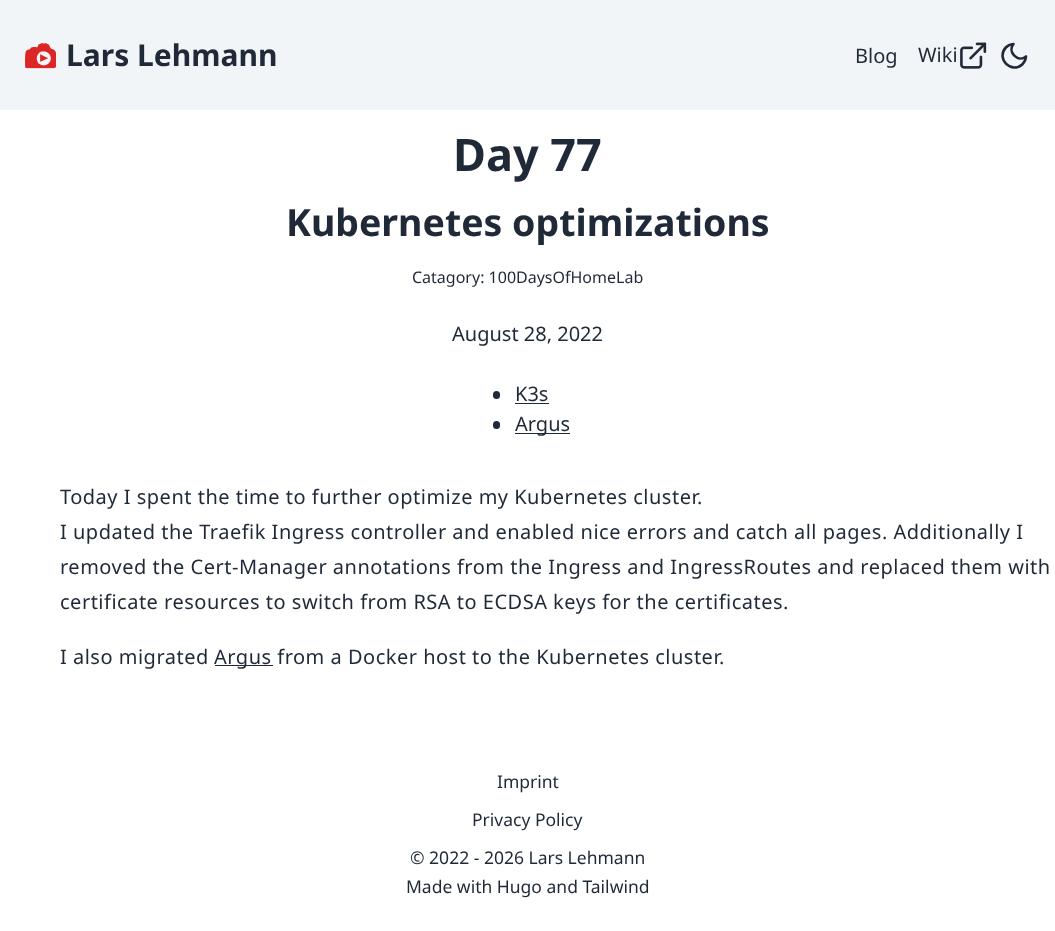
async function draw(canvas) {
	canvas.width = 1055;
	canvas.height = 931;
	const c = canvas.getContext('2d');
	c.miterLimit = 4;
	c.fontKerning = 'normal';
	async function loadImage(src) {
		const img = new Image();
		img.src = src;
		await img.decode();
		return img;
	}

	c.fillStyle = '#fff';
	c.fillRect(0, 0, 1055, 931);
	c.fillStyle = '#f2f5f8';
	c.fillRect(0, 0, 1055, 110);
	c.drawImage(await loadImage('img1.png'), 25, 43, 31, 26);
	c.font = 'bold 30px Noto Sans';
	c.fillStyle = '#1f2937';
	c.fillText('Lars Lehmann', 66, 66);
	c.font = '20px Noto Sans';
	c.fillText('Blog', 855, 63);
	c.fillText('Wiki', 918, 62);
	c.drawImage(await loadImage('img2.png'), 960, 42, 27, 27);
	c.beginPath();
	c.moveTo(1026, 56.5);
	c.bezierCurveTo(1025.5, 63, 1020.5, 67.5, 1014, 67.5);
	c.bezierCurveTo(1008, 67, 1003, 62, 1002.5, 56);
	c.bezierCurveTo(1002.5, 49.5, 1007, 44.5, 1013.5, 44);
	c.bezierCurveTo(1007, 52, 1018, 63, 1026, 56.5);
	c.closePath();
	c.strokeStyle = '#1f2937';
	c.lineWidth = 2.6;
	c.lineCap = 'round';
	c.lineJoin = 'round';
	c.stroke();
	c.font = 'bold 45px Noto Sans';
	c.fillText('Day 77', 453, 171);
	c.font = 'bold 37.5px Noto Sans';
	c.fillText('Kubernetes optimizations', 286, 236);
	c.font = '16px Noto Sans';
	c.fillText('Catagory: 100DaysOfHomeLab', 412, 283);
	c.font = '20px Noto Sans';
	c.fillText('August 28, 2022', 452, 341);
	c.beginPath();
	c.roundRect(493, 391, 7, 8, 3.5);
	c.fill();
	c.fillText('K3s', 515, 401);
	c.fillRect(515, 403, 34, 1);
	c.beginPath();
	c.roundRect(493, 421, 7, 8, 3.5);
	c.fill();
	c.fillRect(515, 433, 55, 1);
	c.fillText('Argus', 515, 431);
	c.letterSpacing = '0.5px';
	for (const [text, x, y] of [
		['Today I spent the time to further optimize my Kubernetes cluster.', 60, 504],
		['I updated the Traefik Ingress controller and enabled nice errors and catch all pages. Additionally I', 60, 539],
		['removed the Cert-Manager annotations from the Ingress and IngressRoutes and replaced them with', 60, 574],
		['certificate resources to switch from RSA to ECDSA keys for the certificates.', 60, 609],
		['I also migrated', 60, 664],
	]) {
		c.fillText(text, x, y);
	}
	c.fillRect(215, 665, 58, 1);
	c.fillText('Argus from a Docker host to the Kubernetes cluster.', 214, 664);
	c.letterSpacing = '0px';
	c.font = '17.5px Noto Sans';
	for (const [text, x, y] of [
		['Imprint', 497, 788],
		['Privacy Policy', 472, 826],
		['© 2022 - 2026 Lars Lehmann', 410, 864],
		['Made with Hugo and Tailwind', 406, 893],
	]) {
		c.fillText(text, x, y);
	}
}

draw(document.querySelector('canvas'));
